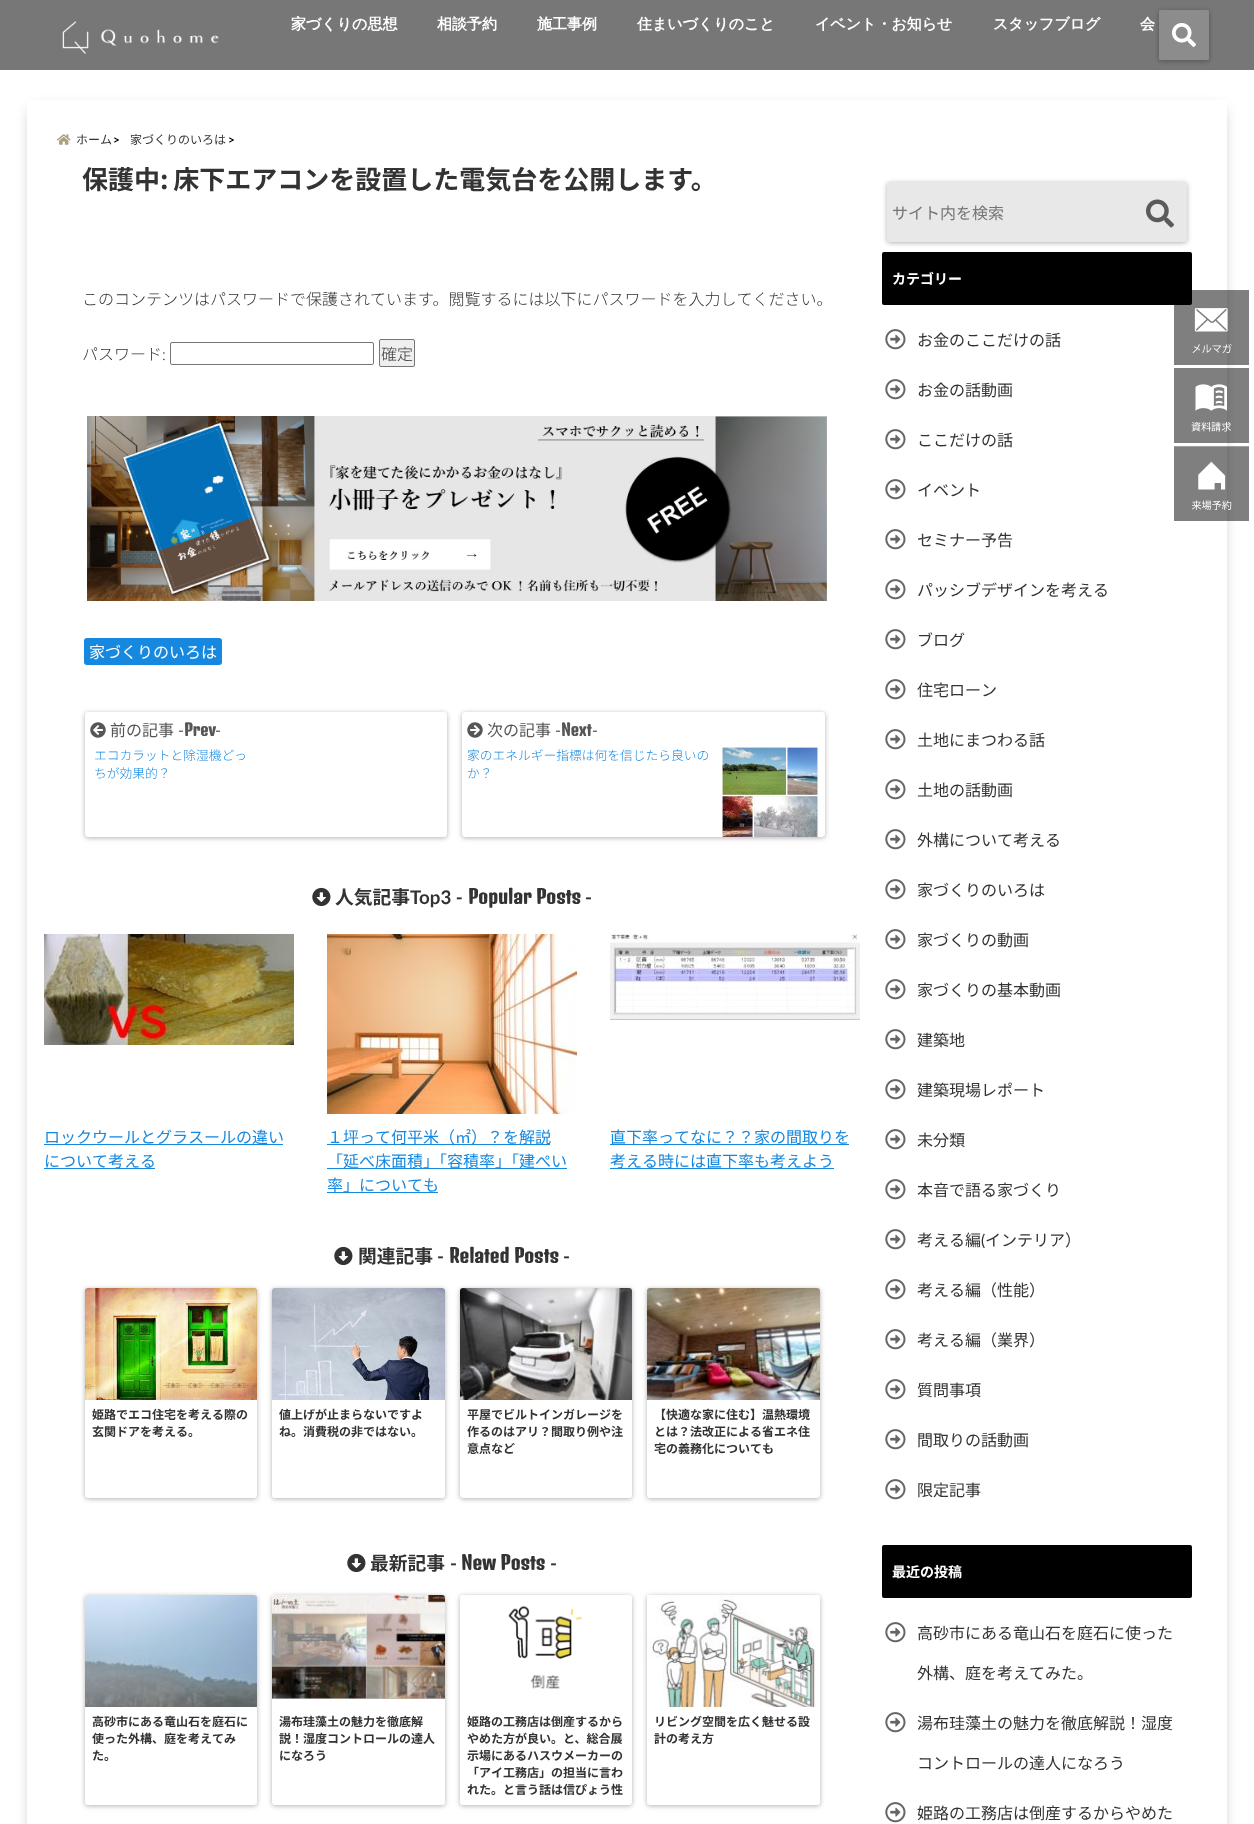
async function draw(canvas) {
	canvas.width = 1254;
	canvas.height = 1824;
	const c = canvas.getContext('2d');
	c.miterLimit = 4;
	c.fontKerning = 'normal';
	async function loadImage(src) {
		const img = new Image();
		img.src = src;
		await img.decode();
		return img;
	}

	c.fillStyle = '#fff';
	c.fillRect(0, 0, 1254, 1824);
	c.fillStyle = '#777';
	c.fillRect(0, 0, 1254, 70);
	c.drawImage(await loadImage('img1.png'), 62, 21, 157, 33);
	c.font = 'bold 15px WenQuanYi Zen Hei';
	c.fillStyle = '#fff';
	for (const [text, x, y] of [
		['家づくりの思想', 291, 29],
		['相談予約', 437, 29],
		['施工事例', 537, 29],
		['住まいづくりのこと', 637, 29],
		['イベント・お知らせ', 815, 29],
		['スタッフブログ', 993, 29],
		['会', 1140, 29],
	]) {
		c.fillText(text, x, y);
	}
	c.fillStyle = '#0000004d';
	c.filter = 'blur(2.5px)';
	c.beginPath();
	c.roundRect(1159, 11, 50, 50, 1.5);
	c.fill();
	c.filter = 'none';
	c.fillStyle = '#8c8c8c';
	c.beginPath();
	c.roundRect(1159, 10, 50, 50, 1.5);
	c.fill();
	c.drawImage(await loadImage('img2.png'), 1172, 23, 24, 24);
	c.save();
	c.beginPath();
	c.moveTo(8, 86);
	c.lineTo(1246, 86);
	c.lineTo(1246, 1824);
	c.lineTo(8, 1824);
	c.closePath();
	c.moveTo(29, 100);
	c.lineTo(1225, 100);
	c.bezierCurveTo(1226, 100, 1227, 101, 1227, 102);
	c.lineTo(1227, 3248);
	c.bezierCurveTo(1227, 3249, 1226, 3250, 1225, 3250);
	c.lineTo(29, 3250);
	c.bezierCurveTo(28, 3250, 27, 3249, 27, 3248);
	c.lineTo(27, 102);
	c.bezierCurveTo(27, 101, 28, 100, 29, 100);
	c.closePath();
	c.clip('evenodd');
	c.fillStyle = '#0000004d';
	c.filter = 'blur(7.5px)';
	c.beginPath();
	c.rect(32, 110, 1190, 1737);
	c.fill();
	c.filter = 'none';
	c.restore();
	c.drawImage(await loadImage('img3.png'), 57, 134, 14, 11);
	c.font = '12px Noto Sans JP';
	c.fillStyle = '#333';
	c.fillText('ホーム', 76, 144);
	c.font = 'bold 12px Lato';
	c.fillStyle = '#010101';
	c.fillText('>', 113, 144);
	c.font = '12px Noto Sans JP';
	c.fillStyle = '#333';
	c.fillText('家づくりのいろは', 130, 144);
	c.font = 'bold 12px Lato';
	c.fillStyle = '#010101';
	c.fillText('>', 228, 144);
	c.wordSpacing = '-1px';
	c.font = 'bold 26px Noto Sans JP';
	c.fillStyle = '#333';
	c.fillText('保護中: 床下エアコンを設置した電気台を公開します。', 82, 189);
	c.wordSpacing = '0px';
	c.font = '300 16px Noto Sans JP';
	c.fillText('このコンテンツはパスワードで保護されています。閲覧するには以下にパスワードを入力してください。', 82, 305);
	c.fillText('パスワード', 82, 360);
	c.font = '300 16px Lato';
	c.fillText(':', 162, 360);
	c.beginPath();
	c.roundRect(170.5, 342.5, 203, 22, 1.5);
	c.strokeStyle = '#767676';
	c.stroke();
	c.fillStyle = '#efefef';
	c.beginPath();
	c.roundRect(379.5, 339.5, 35, 27, 1.5);
	c.fill();
	c.stroke();
	c.font = '300 16px Noto Sans JP';
	c.fillStyle = '#333';
	c.fillText('確定', 381, 360);
	c.drawImage(await loadImage('img4.png'), 87, 416, 740, 185);
	c.fillStyle = '#1688e0';
	c.beginPath();
	c.roundRect(84, 638, 138, 27, 3);
	c.fill();
	c.font = '16px Noto Sans JP';
	c.fillStyle = '#fff';
	c.fillText('家づくりのいろは', 89, 658);
	c.save();
	c.beginPath();
	c.moveTo(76, 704);
	c.lineTo(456, 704);
	c.lineTo(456, 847);
	c.lineTo(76, 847);
	c.closePath();
	c.moveTo(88, 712);
	c.lineTo(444, 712);
	c.bezierCurveTo(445.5, 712, 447, 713.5, 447, 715);
	c.lineTo(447, 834);
	c.bezierCurveTo(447, 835.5, 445.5, 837, 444, 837);
	c.lineTo(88, 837);
	c.bezierCurveTo(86.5, 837, 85, 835.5, 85, 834);
	c.lineTo(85, 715);
	c.bezierCurveTo(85, 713.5, 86.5, 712, 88, 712);
	c.closePath();
	c.clip('evenodd');
	c.fillStyle = '#0000004d';
	c.filter = 'blur(2.5px)';
	c.beginPath();
	c.roundRect(85, 713, 362, 125, 3);
	c.fill();
	c.filter = 'none';
	c.restore();
	c.drawImage(await loadImage('img5.png'), 90, 722, 16, 16);
	c.fillStyle = '#565656';
	c.fillText('前の記事', 110, 736);
	c.font = '16px Lato';
	c.fillText('-', 178, 736);
	c.font = 'bold 16px Denk One';
	c.fillText('Prev', 184, 736);
	c.font = '16px Lato';
	c.fillText('-', 215, 736);
	c.font = '300 12.75px Noto Sans JP';
	c.fillStyle = '#1688e0';
	c.fillText('エコカラットと除湿機どっ', 94, 760);
	c.fillText('ちが効果的？', 94, 778);
	c.save();
	c.beginPath();
	c.moveTo(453, 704);
	c.lineTo(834, 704);
	c.lineTo(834, 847);
	c.lineTo(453, 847);
	c.closePath();
	c.moveTo(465, 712);
	c.lineTo(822, 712);
	c.bezierCurveTo(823.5, 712, 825, 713.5, 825, 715);
	c.lineTo(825, 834);
	c.bezierCurveTo(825, 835.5, 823.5, 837, 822, 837);
	c.lineTo(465, 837);
	c.bezierCurveTo(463.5, 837, 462, 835.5, 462, 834);
	c.lineTo(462, 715);
	c.bezierCurveTo(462, 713.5, 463.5, 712, 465, 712);
	c.closePath();
	c.clip('evenodd');
	c.fillStyle = '#0000004d';
	c.filter = 'blur(2.5px)';
	c.beginPath();
	c.roundRect(462, 713, 363, 125, 3);
	c.fill();
	c.filter = 'none';
	c.restore();
	c.drawImage(await loadImage('img6.png'), 467, 722, 16, 16);
	c.font = '16px Noto Sans JP';
	c.fillStyle = '#565656';
	c.fillText('次の記事', 487, 736);
	c.font = '16px Lato';
	c.fillText('-', 555, 736);
	c.font = 'bold 16px Denk One';
	c.fillText('Next', 561, 736);
	c.font = '16px Lato';
	c.fillText('-', 592, 736);
	c.font = '300 12.75px Noto Sans JP';
	c.fillStyle = '#1688e0';
	c.fillText('家のエネルギー指標は何を信じたら良いの', 467, 760);
	c.fillText('か？', 467, 778);
	c.drawImage(await loadImage('img7.png'), 722, 747, 96, 90);
	c.drawImage(await loadImage('img8.png'), 312, 887, 19, 20);
	c.font = 'bold 18.75px Noto Sans JP';
	c.fillStyle = '#333';
	c.fillText('人気記事', 335, 904);
	c.font = 'bold 18.75px Lato';
	c.fillText('Top3 -', 410, 904);
	c.font = 'bold 18.75px Denk One';
	c.fillText('Popular Posts', 468, 904);
	c.font = 'bold 18.75px Lato';
	c.fillText('-', 585, 904);
	c.drawImage(await loadImage('img9.png'), 44, 934, 250, 111);
	c.fillStyle = '#1688e0';
	c.fillRect(44, 1144, 239, 1);
	c.font = '16px Noto Sans JP';
	c.fillText('ロックウールとグラスールの違い', 44, 1143);
	c.fillRect(44, 1168, 111, 1);
	c.fillText('について考える', 44, 1167);
	c.drawImage(await loadImage('img10.png'), 327, 934, 250, 180);
	c.fillRect(327, 1144, 223, 1);
	c.fillText('１坪って何平米（㎡）？を解説', 327, 1143);
	c.fillRect(327, 1168, 240, 1);
	c.fillText('「延べ床面積」「容積率」「建ぺい', 327, 1167);
	c.fillRect(327, 1192, 111, 1);
	c.fillText('率」についても', 327, 1191);
	c.drawImage(await loadImage('img11.png'), 610, 934, 250, 86);
	c.fillRect(610, 1144, 239, 1);
	c.fillText('直下率ってなに？？家の間取りを', 610, 1143);
	c.fillRect(610, 1168, 224, 1);
	c.fillText('考える時には直下率も考えよう', 610, 1167);
	c.drawImage(await loadImage('img8.png'), 334, 1246, 19, 20);
	c.font = 'bold 18.75px Noto Sans JP';
	c.fillStyle = '#333';
	c.fillText('関連記事', 358, 1263);
	c.font = 'bold 18.75px Lato';
	c.fillText('-', 437, 1263);
	c.font = 'bold 18.75px Denk One';
	c.fillText('Related Posts', 449, 1263);
	c.font = 'bold 18.75px Lato';
	c.fillText('-', 563, 1263);
	c.fillStyle = '#0000004d';
	c.filter = 'blur(2.5px)';
	c.beginPath();
	c.roundRect(85, 1289, 172, 210, 3);
	c.fill();
	c.filter = 'none';
	c.fillStyle = '#fff';
	c.beginPath();
	c.roundRect(85, 1288, 172, 210, 3);
	c.fill();
	c.drawImage(await loadImage('img12.png'), 85, 1288, 172, 112);
	c.font = 'bold 12px Noto Sans JP';
	c.fillStyle = '#333';
	c.fillText('姫路でエコ住宅を考える際の', 92, 1419);
	c.fillText('玄関ドアを考える。', 92, 1436);
	c.fillStyle = '#0000004d';
	c.filter = 'blur(2.5px)';
	c.beginPath();
	c.roundRect(272, 1289, 173, 210, 3);
	c.fill();
	c.filter = 'none';
	c.fillStyle = '#fff';
	c.beginPath();
	c.roundRect(272, 1288, 173, 210, 3);
	c.fill();
	c.drawImage(await loadImage('img13.png'), 272, 1288, 173, 112);
	c.fillStyle = '#333';
	c.fillText('値上げが止まらないですよ', 279, 1419);
	c.fillText('ね。消費税の非ではない。', 279, 1436);
	c.fillStyle = '#0000004d';
	c.filter = 'blur(2.5px)';
	c.beginPath();
	c.roundRect(460, 1289, 172, 210, 3);
	c.fill();
	c.filter = 'none';
	c.fillStyle = '#fff';
	c.beginPath();
	c.roundRect(460, 1288, 172, 210, 3);
	c.fill();
	c.drawImage(await loadImage('img14.png'), 460, 1288, 172, 112);
	c.fillStyle = '#333';
	for (const [text, x, y] of [
		['平屋でビルトインガレージを', 467, 1419],
		['作るのはアリ？間取り例や注', 467, 1436],
		['意点など', 467, 1453],
	]) {
		c.fillText(text, x, y);
	}
	c.fillStyle = '#0000004d';
	c.filter = 'blur(2.5px)';
	c.beginPath();
	c.roundRect(647, 1289, 173, 210, 3);
	c.fill();
	c.filter = 'none';
	c.fillStyle = '#fff';
	c.beginPath();
	c.roundRect(647, 1288, 173, 210, 3);
	c.fill();
	c.drawImage(await loadImage('img15.png'), 647, 1288, 173, 112);
	c.fillStyle = '#333';
	for (const [text, x, y] of [
		['【快適な家に住む】温熱環境', 654, 1419],
		['とは？法改正による省エネ住', 654, 1436],
		['宅の義務化についても', 654, 1453],
	]) {
		c.fillText(text, x, y);
	}
	c.drawImage(await loadImage('img8.png'), 347, 1553, 19, 20);
	c.font = 'bold 18.75px Noto Sans JP';
	c.fillText('最新記事', 370, 1570);
	c.font = 'bold 18.75px Lato';
	c.fillText('-', 450, 1570);
	c.font = 'bold 18.75px Denk One';
	c.fillText('New Posts', 461, 1570);
	c.font = 'bold 18.75px Lato';
	c.fillText('-', 550, 1570);
	c.fillStyle = '#0000004d';
	c.filter = 'blur(2.5px)';
	c.beginPath();
	c.roundRect(85, 1596, 172, 210, 3);
	c.fill();
	c.filter = 'none';
	c.fillStyle = '#fff';
	c.beginPath();
	c.roundRect(85, 1595, 172, 210, 3);
	c.fill();
	c.drawImage(await loadImage('img16.png'), 85, 1595, 172, 112);
	c.font = 'bold 12px Noto Sans JP';
	c.fillStyle = '#333';
	for (const [text, x, y] of [
		['高砂市にある竜山石を庭石に', 92, 1726],
		['使った外構、庭を考えてみ', 92, 1743],
		['た。', 92, 1760],
	]) {
		c.fillText(text, x, y);
	}
	c.fillStyle = '#0000004d';
	c.filter = 'blur(2.5px)';
	c.beginPath();
	c.roundRect(272, 1596, 173, 210, 3);
	c.fill();
	c.filter = 'none';
	c.fillStyle = '#fff';
	c.beginPath();
	c.roundRect(272, 1595, 173, 210, 3);
	c.fill();
	c.drawImage(await loadImage('img17.png'), 272, 1595, 173, 104);
	c.fillStyle = '#333';
	for (const [text, x, y] of [
		['湯布珪藻土の魅力を徹底解', 279, 1726],
		['説！湿度コントロールの達人', 279, 1743],
		['になろう', 279, 1760],
	]) {
		c.fillText(text, x, y);
	}
	c.fillStyle = '#0000004d';
	c.filter = 'blur(2.5px)';
	c.beginPath();
	c.roundRect(460, 1596, 172, 210, 3);
	c.fill();
	c.filter = 'none';
	c.fillStyle = '#fff';
	c.beginPath();
	c.roundRect(460, 1595, 172, 210, 3);
	c.fill();
	c.drawImage(await loadImage('img18.png'), 508, 1605, 75, 84);
	c.fillStyle = '#333';
	for (const [text, x, y] of [
		['姫路の工務店は倒産するから', 467, 1726],
		['やめた方が良い。と、総合展', 467, 1743],
		['示場にあるハスウメーカーの', 467, 1760],
		['「アイ工務店」の担当に言わ', 467, 1777],
		['れた。と言う話は信ぴょう性', 467, 1794],
	]) {
		c.fillText(text, x, y);
	}
	c.fillStyle = '#0000004d';
	c.filter = 'blur(2.5px)';
	c.beginPath();
	c.roundRect(647, 1596, 173, 210, 3);
	c.fill();
	c.filter = 'none';
	c.fillStyle = '#fff';
	c.beginPath();
	c.roundRect(647, 1595, 173, 210, 3);
	c.fill();
	c.drawImage(await loadImage('img19.png'), 647, 1595, 169, 112);
	c.fillStyle = '#333';
	c.fillText('リビング空間を広く魅せる設', 654, 1726);
	c.fillText('計の考え方', 654, 1743);
	c.fillStyle = '#0000004d';
	c.filter = 'blur(2.5px)';
	c.beginPath();
	c.roundRect(887, 183, 300, 60, 3);
	c.fill();
	c.filter = 'none';
	c.fillStyle = '#e8e8e8';
	c.beginPath();
	c.roundRect(887, 182, 300, 60, 3);
	c.fill();
	c.font = '16px Noto Sans JP';
	c.fillStyle = '#757575';
	c.fillText('サイト内を検索', 892, 219);
	c.drawImage(await loadImage('img20.png'), 1146, 199, 28, 29);
	c.fillStyle = '#000';
	c.beginPath();
	c.roundRect(882, 252, 310, 53, 2);
	c.fill();
	c.font = 'bold 14px Noto Sans JP';
	c.fillStyle = '#fff';
	c.fillText('カテゴリー', 892, 284);
	c.drawImage(await loadImage('img21.png'), 885, 329, 21, 21);
	c.font = '16px Noto Sans JP';
	c.fillStyle = '#333';
	c.fillText('お金のここだけの話', 917, 346);
	c.drawImage(await loadImage('img21.png'), 885, 379, 21, 21);
	c.fillText('お金の話動画', 917, 396);
	c.drawImage(await loadImage('img21.png'), 885, 429, 21, 21);
	c.fillText('ここだけの話', 917, 446);
	c.drawImage(await loadImage('img21.png'), 885, 479, 21, 21);
	c.fillText('イベント', 917, 496);
	c.drawImage(await loadImage('img21.png'), 885, 529, 21, 21);
	c.fillText('セミナー予告', 917, 546);
	c.drawImage(await loadImage('img21.png'), 885, 579, 21, 21);
	c.fillText('パッシブデザインを考える', 917, 596);
	c.drawImage(await loadImage('img21.png'), 885, 629, 21, 21);
	c.fillText('ブログ', 917, 646);
	c.drawImage(await loadImage('img21.png'), 885, 679, 21, 21);
	c.fillText('住宅ローン', 917, 696);
	c.drawImage(await loadImage('img21.png'), 885, 729, 21, 21);
	c.fillText('土地にまつわる話', 917, 746);
	c.drawImage(await loadImage('img21.png'), 885, 779, 21, 21);
	c.fillText('土地の話動画', 917, 796);
	c.drawImage(await loadImage('img21.png'), 885, 829, 21, 21);
	c.fillText('外構について考える', 917, 846);
	c.drawImage(await loadImage('img21.png'), 885, 879, 21, 21);
	c.fillText('家づくりのいろは', 917, 896);
	c.drawImage(await loadImage('img21.png'), 885, 929, 21, 21);
	c.fillText('家づくりの動画', 917, 946);
	c.drawImage(await loadImage('img21.png'), 885, 979, 21, 21);
	c.fillText('家づくりの基本動画', 917, 996);
	c.drawImage(await loadImage('img21.png'), 885, 1029, 21, 21);
	c.fillText('建築地', 917, 1046);
	c.drawImage(await loadImage('img21.png'), 885, 1079, 21, 21);
	c.fillText('建築現場レポート', 917, 1096);
	c.drawImage(await loadImage('img21.png'), 885, 1129, 21, 21);
	c.fillText('未分類', 917, 1146);
	c.drawImage(await loadImage('img21.png'), 885, 1179, 21, 21);
	c.fillText('本音で語る家づくり', 917, 1196);
	c.drawImage(await loadImage('img21.png'), 885, 1229, 21, 21);
	c.fillText('考える編', 917, 1246);
	c.font = '16px Lato';
	c.fillText('(', 981, 1246);
	c.font = '16px Noto Sans JP';
	c.fillText('インテリア）', 985, 1246);
	c.drawImage(await loadImage('img21.png'), 885, 1279, 21, 21);
	c.fillText('考える編（性能）', 917, 1296);
	c.drawImage(await loadImage('img21.png'), 885, 1329, 21, 21);
	c.fillText('考える編（業界）', 917, 1346);
	c.drawImage(await loadImage('img21.png'), 885, 1379, 21, 21);
	c.fillText('質問事項', 917, 1396);
	c.drawImage(await loadImage('img21.png'), 885, 1429, 21, 21);
	c.fillText('間取りの話動画', 917, 1446);
	c.drawImage(await loadImage('img21.png'), 885, 1479, 21, 21);
	c.fillText('限定記事', 917, 1496);
	c.fillStyle = '#000';
	c.beginPath();
	c.roundRect(882, 1545, 310, 53, 2);
	c.fill();
	c.font = 'bold 14px Noto Sans JP';
	c.fillStyle = '#fff';
	c.fillText('最近の投稿', 892, 1577);
	c.drawImage(await loadImage('img21.png'), 885, 1622, 21, 21);
	c.font = '16px Noto Sans JP';
	c.fillStyle = '#333';
	c.fillText('高砂市にある竜山石を庭石に使った', 917, 1639);
	c.fillText('外構、庭を考えてみた。', 917, 1679);
	c.drawImage(await loadImage('img21.png'), 885, 1712, 21, 21);
	c.fillText('湯布珪藻土の魅力を徹底解説！湿度', 917, 1729);
	c.fillText('コントロールの達人になろう', 917, 1769);
	c.drawImage(await loadImage('img21.png'), 885, 1802, 21, 21);
	c.fillText('姫路の工務店は倒産するからやめた', 917, 1819);
	c.drawImage(await loadImage('img22.png'), 1174, 290, 75, 75);
	c.drawImage(await loadImage('img23.png'), 1174, 368, 75, 75);
	c.drawImage(await loadImage('img24.png'), 1174, 446, 75, 75);
}

draw(document.querySelector('canvas'));
